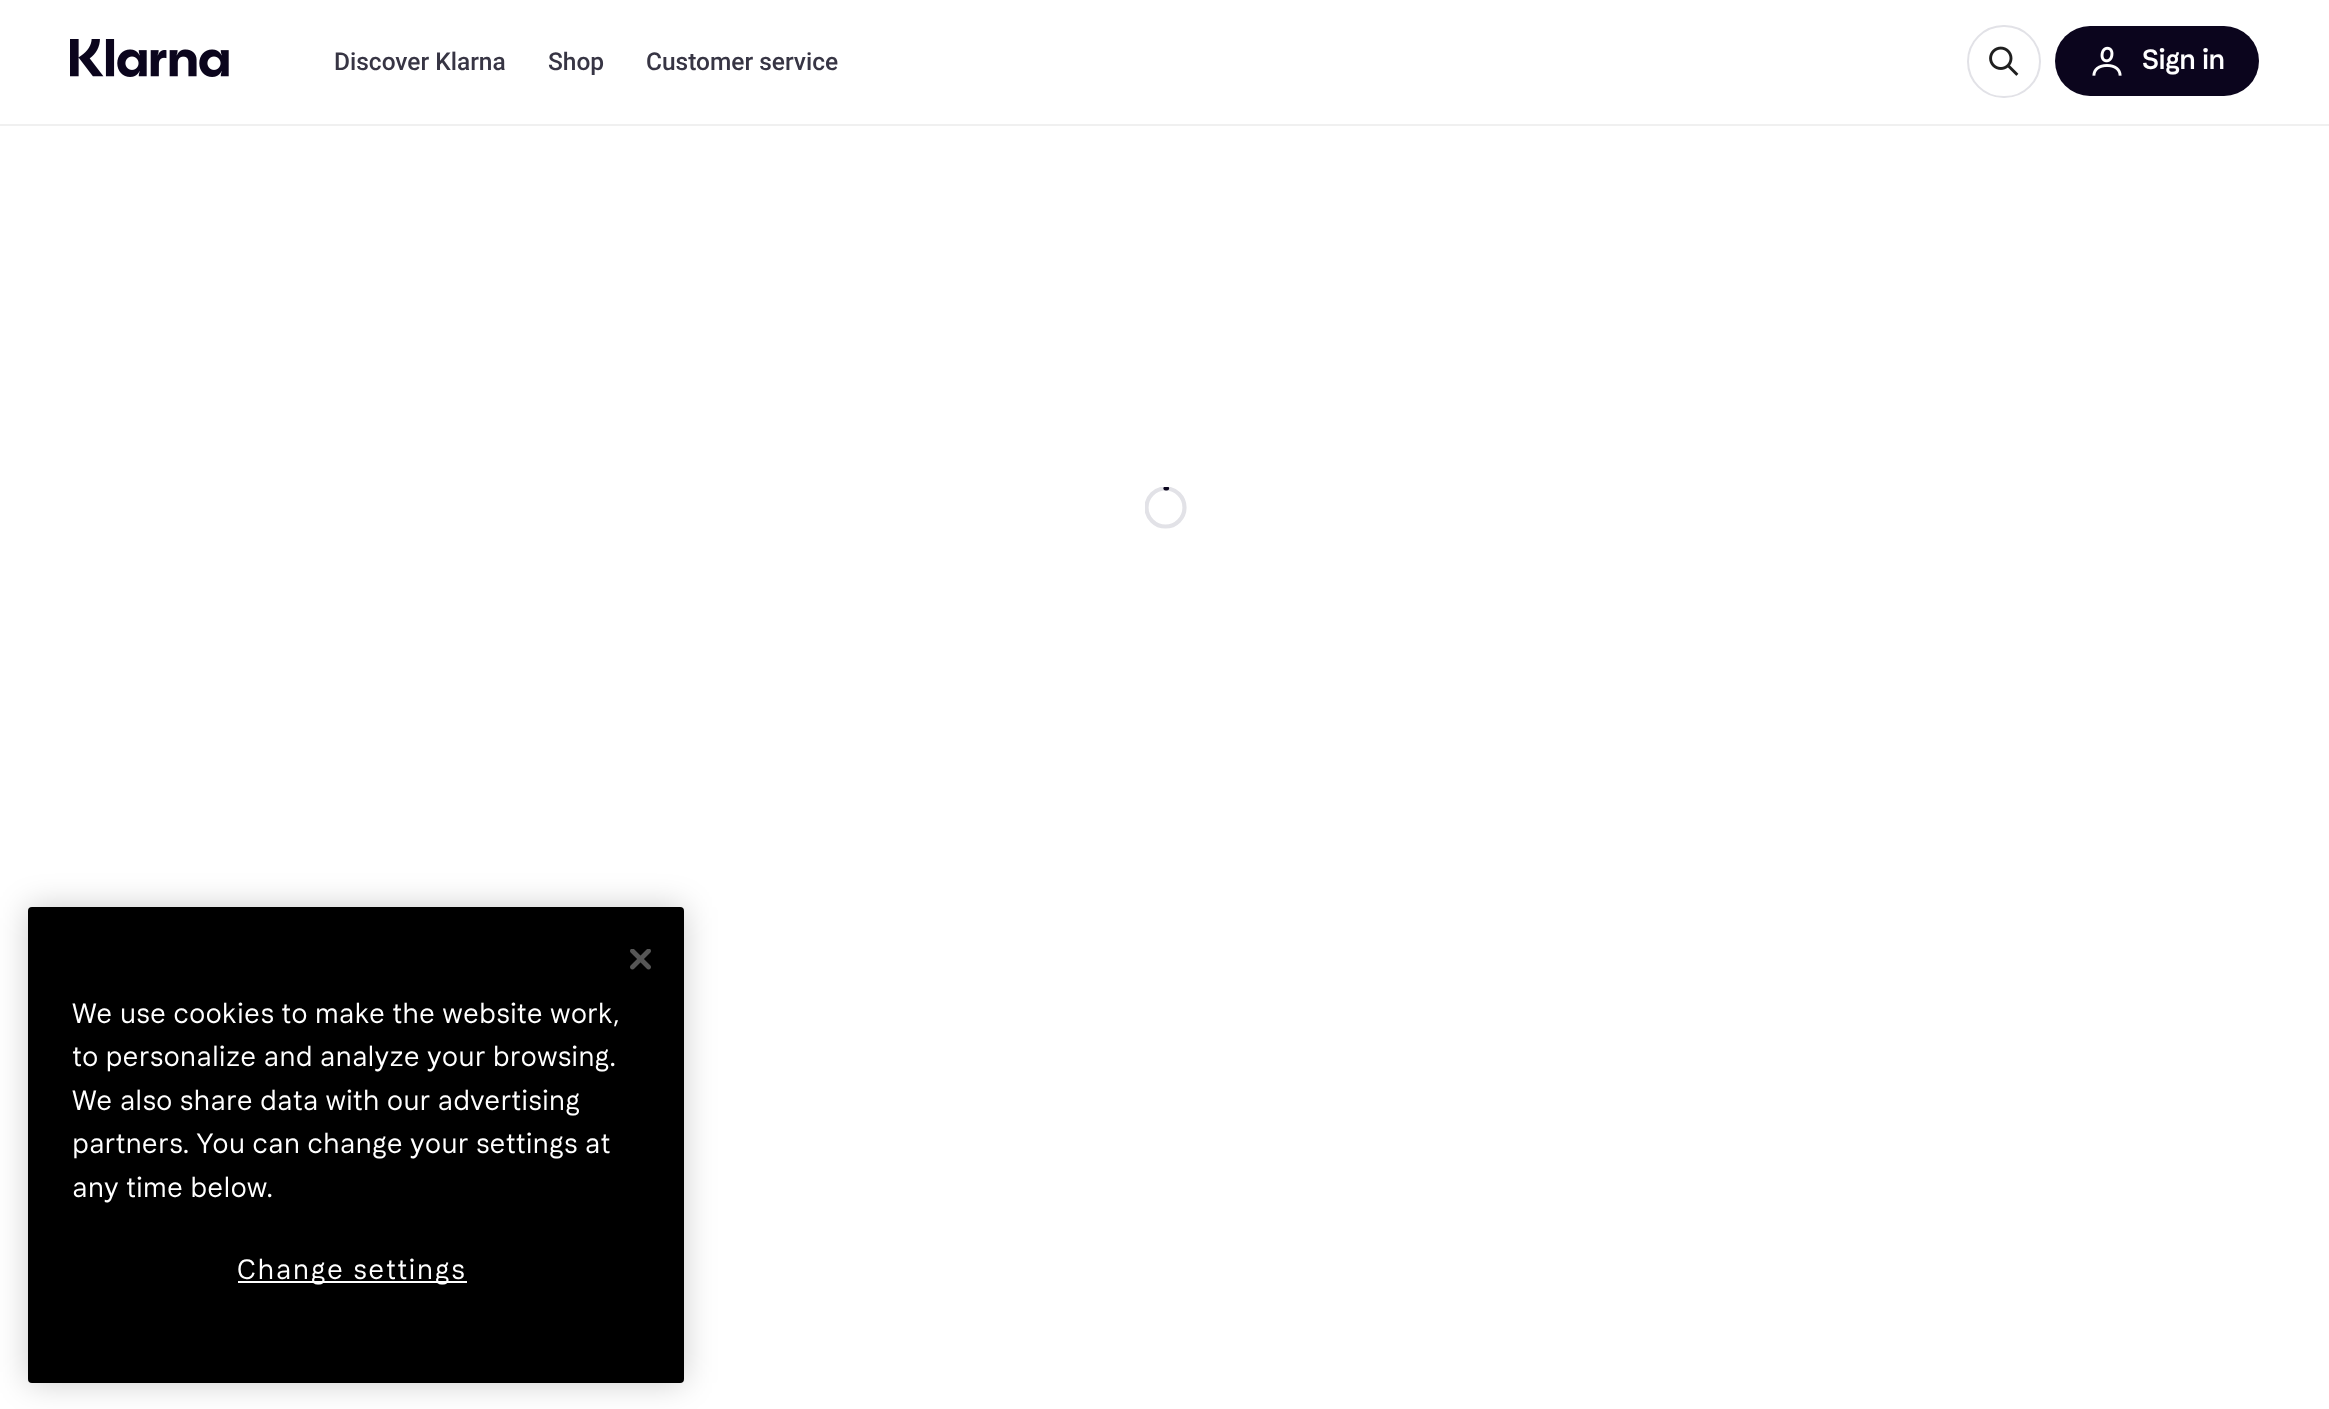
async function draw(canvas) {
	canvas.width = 2329;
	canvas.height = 1409;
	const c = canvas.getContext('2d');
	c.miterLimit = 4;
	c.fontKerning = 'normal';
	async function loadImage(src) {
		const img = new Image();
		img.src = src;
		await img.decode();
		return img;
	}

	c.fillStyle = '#fff';
	c.fillRect(0, 0, 2329, 1409);
	c.fillStyle = '#f0f0f0';
	c.fillRect(0, 124, 2329, 2);
	c.drawImage(await loadImage('img1.png'), 70, 39, 159, 38);
	c.font = '500 24.5px Roboto';
	c.fillStyle = '#373544';
	for (const [text, x, y] of [
		['Discover Klarna', 334, 70],
		['Shop', 548, 70],
		['Customer service', 646, 70],
	]) {
		c.fillText(text, x, y);
	}
	c.beginPath();
	c.roundRect(1968, 26, 72, 71, 35.5);
	c.strokeStyle = '#e2e2e7';
	c.lineWidth = 2;
	c.stroke();
	c.drawImage(await loadImage('img2.png'), 1989, 46, 30, 30);
	c.fillStyle = '#0b051d';
	c.beginPath();
	c.roundRect(2055, 26, 204, 70, 35);
	c.fill();
	c.drawImage(await loadImage('img3.png'), 2092, 46, 30, 30);
	c.font = '500 28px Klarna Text';
	c.fillStyle = '#fff';
	c.fillText('Sign in', 2142, 69);
	c.save();
	c.beginPath();
	c.rect(1145, 487, 42, 42);
	c.clip();
	c.beginPath();
	c.arc(1165.5, 507.5, 19, 0, 2 * Math.PI);
	c.lineWidth = 4.2;
	c.stroke();
	c.beginPath();
	c.moveTo(1165.5, 488.5);
	c.lineTo(1167, 488.5);
	c.strokeStyle = '#0b051d';
	c.lineCap = 'round';
	c.stroke();
	c.restore();
	c.fillStyle = '#00000033';
	c.filter = 'blur(16px)';
	c.beginPath();
	c.roundRect(28, 907, 656, 476, 4);
	c.fill();
	c.filter = 'none';
	c.fillStyle = '#000';
	c.beginPath();
	c.roundRect(28, 907, 656, 476, 4);
	c.fill();
	c.drawImage(await loadImage('img4.png'), 630, 949, 21, 21);
	c.font = '28px Klarna Text';
	c.fillStyle = '#fff';
	for (const [text, x, y] of [
		['We use cookies to make the website work,', 72, 1023],
		['to personalize and analyze your browsing.', 72, 1066],
		['We also share data with our advertising', 72, 1110],
		['partners. You can change your settings at', 72, 1153],
		['any time below.', 72, 1197],
	]) {
		c.fillText(text, x, y);
	}
	c.fillRect(238, 1281, 229, 2);
	c.letterSpacing = '1.4px';
	c.fillText('Change settings', 237, 1279);
}

draw(document.querySelector('canvas'));
